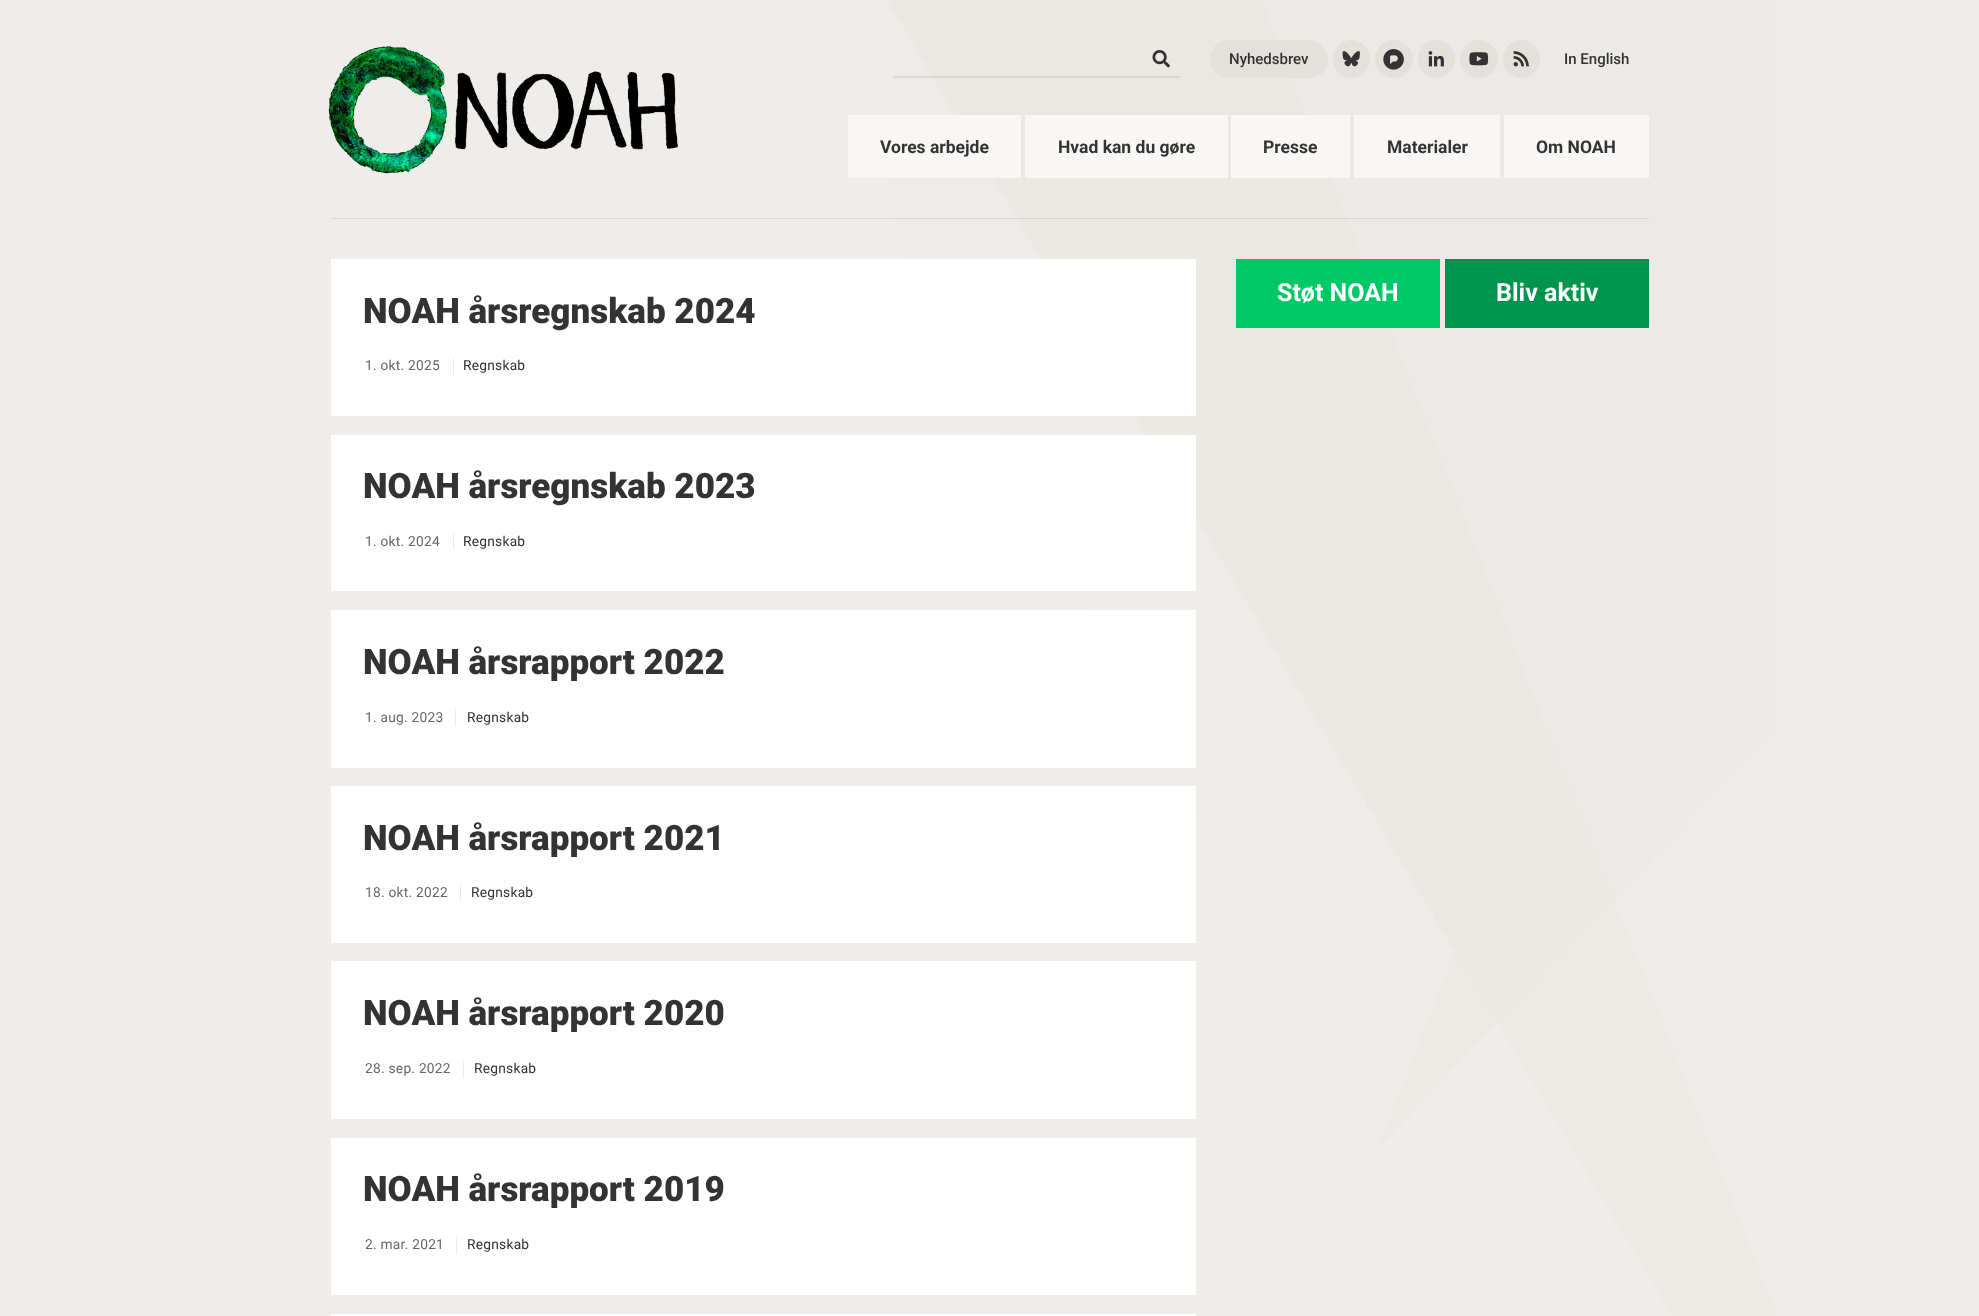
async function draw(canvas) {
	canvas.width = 1979;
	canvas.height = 1316;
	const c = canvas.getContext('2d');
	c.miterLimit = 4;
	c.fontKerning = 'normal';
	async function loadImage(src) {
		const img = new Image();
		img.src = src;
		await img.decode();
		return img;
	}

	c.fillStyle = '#efedea';
	c.fillRect(0, 0, 1979, 1316);
	c.drawImage(await loadImage('img1.png'), 888, 0, 889, 1316);
	c.fillStyle = '#3333331a';
	c.fillRect(331, 218, 1318, 1);
	c.drawImage(await loadImage('img2.png'), 328, 46, 350, 128);
	c.drawImage(await loadImage('img3.png'), 1152, 50, 18, 18);
	c.beginPath();
	c.moveTo(1180, 78);
	c.lineTo(892, 78);
	c.lineTo(894, 76);
	c.lineTo(1179, 76);
	c.closePath();
	c.fill();
	c.fillStyle = '#e4e1dc';
	c.beginPath();
	c.roundRect(1210, 40, 118, 38, 19);
	c.fill();
	c.font = '500 15px Roboto';
	c.fillStyle = '#333';
	c.fillText('Nyhedsbrev', 1229, 64);
	c.fillStyle = '#e4e1dc';
	c.beginPath();
	c.roundRect(1333, 40, 37, 38, 18.5);
	c.fill();
	c.drawImage(await loadImage('img4.png'), 1342, 51, 18, 16);
	c.beginPath();
	c.arc(1394, 59, 19, 0, 2 * Math.PI);
	c.fill();
	c.drawImage(await loadImage('img5.png'), 1383, 49, 21, 21);
	c.beginPath();
	c.roundRect(1418, 40, 37, 38, 18.5);
	c.fill();
	c.drawImage(await loadImage('img6.png'), 1428, 51, 16, 16);
	c.beginPath();
	c.arc(1479, 59, 19, 0, 2 * Math.PI);
	c.fill();
	c.drawImage(await loadImage('img7.png'), 1469, 52, 20, 14);
	c.beginPath();
	c.roundRect(1503, 40, 37, 38, 18.5);
	c.fill();
	c.drawImage(await loadImage('img8.png'), 1513, 51, 16, 16);
	c.fillStyle = '#333';
	c.fillText('In English', 1564, 64);
	c.fillStyle = '#f8f7f6';
	c.fillRect(848, 115, 173, 63);
	c.font = 'bold 17.5px Roboto';
	c.fillStyle = '#333';
	c.fillText('Vores arbejde', 880, 153);
	c.fillStyle = '#f8f7f6';
	c.fillRect(1025, 115, 203, 63);
	c.fillStyle = '#333';
	c.fillText('Hvad kan du gøre', 1058, 153);
	c.fillStyle = '#f8f7f6';
	c.fillRect(1231, 115, 119, 63);
	c.fillStyle = '#333';
	c.fillText('Presse', 1263, 153);
	c.fillStyle = '#f8f7f6';
	c.fillRect(1354, 115, 146, 63);
	c.fillStyle = '#333';
	c.fillText('Materialer', 1387, 153);
	c.fillStyle = '#f8f7f6';
	c.fillRect(1504, 115, 145, 63);
	c.fillStyle = '#333';
	c.fillText('Om NOAH', 1536, 153);
	c.fillStyle = '#00c867';
	c.fillRect(1236, 259, 204, 69);
	c.font = 'bold 25px Roboto';
	c.fillStyle = '#fff';
	c.fillText('Støt NOAH', 1277, 301);
	c.fillStyle = '#00954d';
	c.fillRect(1445, 259, 204, 69);
	c.fillStyle = '#fff';
	c.fillText('Bliv aktiv', 1496, 301);
	c.fillRect(331, 259, 865, 157);
	c.font = '900 35px Roboto';
	c.fillStyle = '#333';
	c.fillText('NOAH årsregnskab 2024', 363, 323);
	c.letterSpacing = '0.25px';
	c.font = '13.75px Roboto';
	c.fillStyle = '#666';
	c.fillText('1. okt. 2025', 365, 370);
	c.fillStyle = '#ebebeb';
	c.fillRect(453, 358, 1, 17);
	c.fillStyle = '#333';
	c.fillText('Regnskab', 463, 370);
	c.fillStyle = '#fff';
	c.fillRect(331, 435, 865, 156);
	c.letterSpacing = '0px';
	c.font = '900 35px Roboto';
	c.fillStyle = '#333';
	c.fillText('NOAH årsregnskab 2023', 363, 498);
	c.letterSpacing = '0.25px';
	c.font = '13.75px Roboto';
	c.fillStyle = '#666';
	c.fillText('1. okt. 2024', 365, 546);
	c.fillStyle = '#ebebeb';
	c.fillRect(453, 533, 1, 17);
	c.fillStyle = '#333';
	c.fillText('Regnskab', 463, 546);
	c.fillStyle = '#fff';
	c.fillRect(331, 610, 865, 158);
	c.letterSpacing = '0px';
	c.font = '900 35px Roboto';
	c.fillStyle = '#333';
	c.fillText('NOAH årsrapport 2022', 363, 674);
	c.letterSpacing = '0.25px';
	c.font = '13.75px Roboto';
	c.fillStyle = '#666';
	c.fillText('1. aug. 2023', 365, 722);
	c.fillStyle = '#ebebeb';
	c.fillRect(455, 709, 1, 17);
	c.fillStyle = '#333';
	c.fillText('Regnskab', 467, 722);
	c.fillStyle = '#fff';
	c.fillRect(331, 786, 865, 157);
	c.letterSpacing = '0px';
	c.font = '900 35px Roboto';
	c.fillStyle = '#333';
	c.fillText('NOAH årsrapport 2021', 363, 850);
	c.letterSpacing = '0.25px';
	c.font = '13.75px Roboto';
	c.fillStyle = '#666';
	c.fillText('18. okt. 2022', 365, 897);
	c.fillStyle = '#ebebeb';
	c.fillRect(460, 884, 1, 17);
	c.fillStyle = '#333';
	c.fillText('Regnskab', 471, 897);
	c.fillStyle = '#fff';
	c.fillRect(331, 961, 865, 158);
	c.letterSpacing = '0px';
	c.font = '900 35px Roboto';
	c.fillStyle = '#333';
	c.fillText('NOAH årsrapport 2020', 363, 1025);
	c.letterSpacing = '0.25px';
	c.font = '13.75px Roboto';
	c.fillStyle = '#666';
	c.fillText('28. sep. 2022', 365, 1073);
	c.fillStyle = '#ebebeb';
	c.fillRect(463, 1060, 1, 18);
	c.fillStyle = '#333';
	c.fillText('Regnskab', 474, 1073);
	c.fillStyle = '#fff';
	c.fillRect(331, 1138, 865, 157);
	c.letterSpacing = '0px';
	c.font = '900 35px Roboto';
	c.fillStyle = '#333';
	c.fillText('NOAH årsrapport 2019', 363, 1201);
	c.letterSpacing = '0.25px';
	c.font = '13.75px Roboto';
	c.fillStyle = '#666';
	c.fillText('2. mar. 2021', 365, 1249);
	c.fillStyle = '#ebebeb';
	c.fillRect(456, 1236, 1, 18);
	c.fillStyle = '#333';
	c.fillText('Regnskab', 467, 1249);
	c.fillStyle = '#fff';
	c.fillRect(331, 1314, 865, 2);
}

draw(document.querySelector('canvas'));
